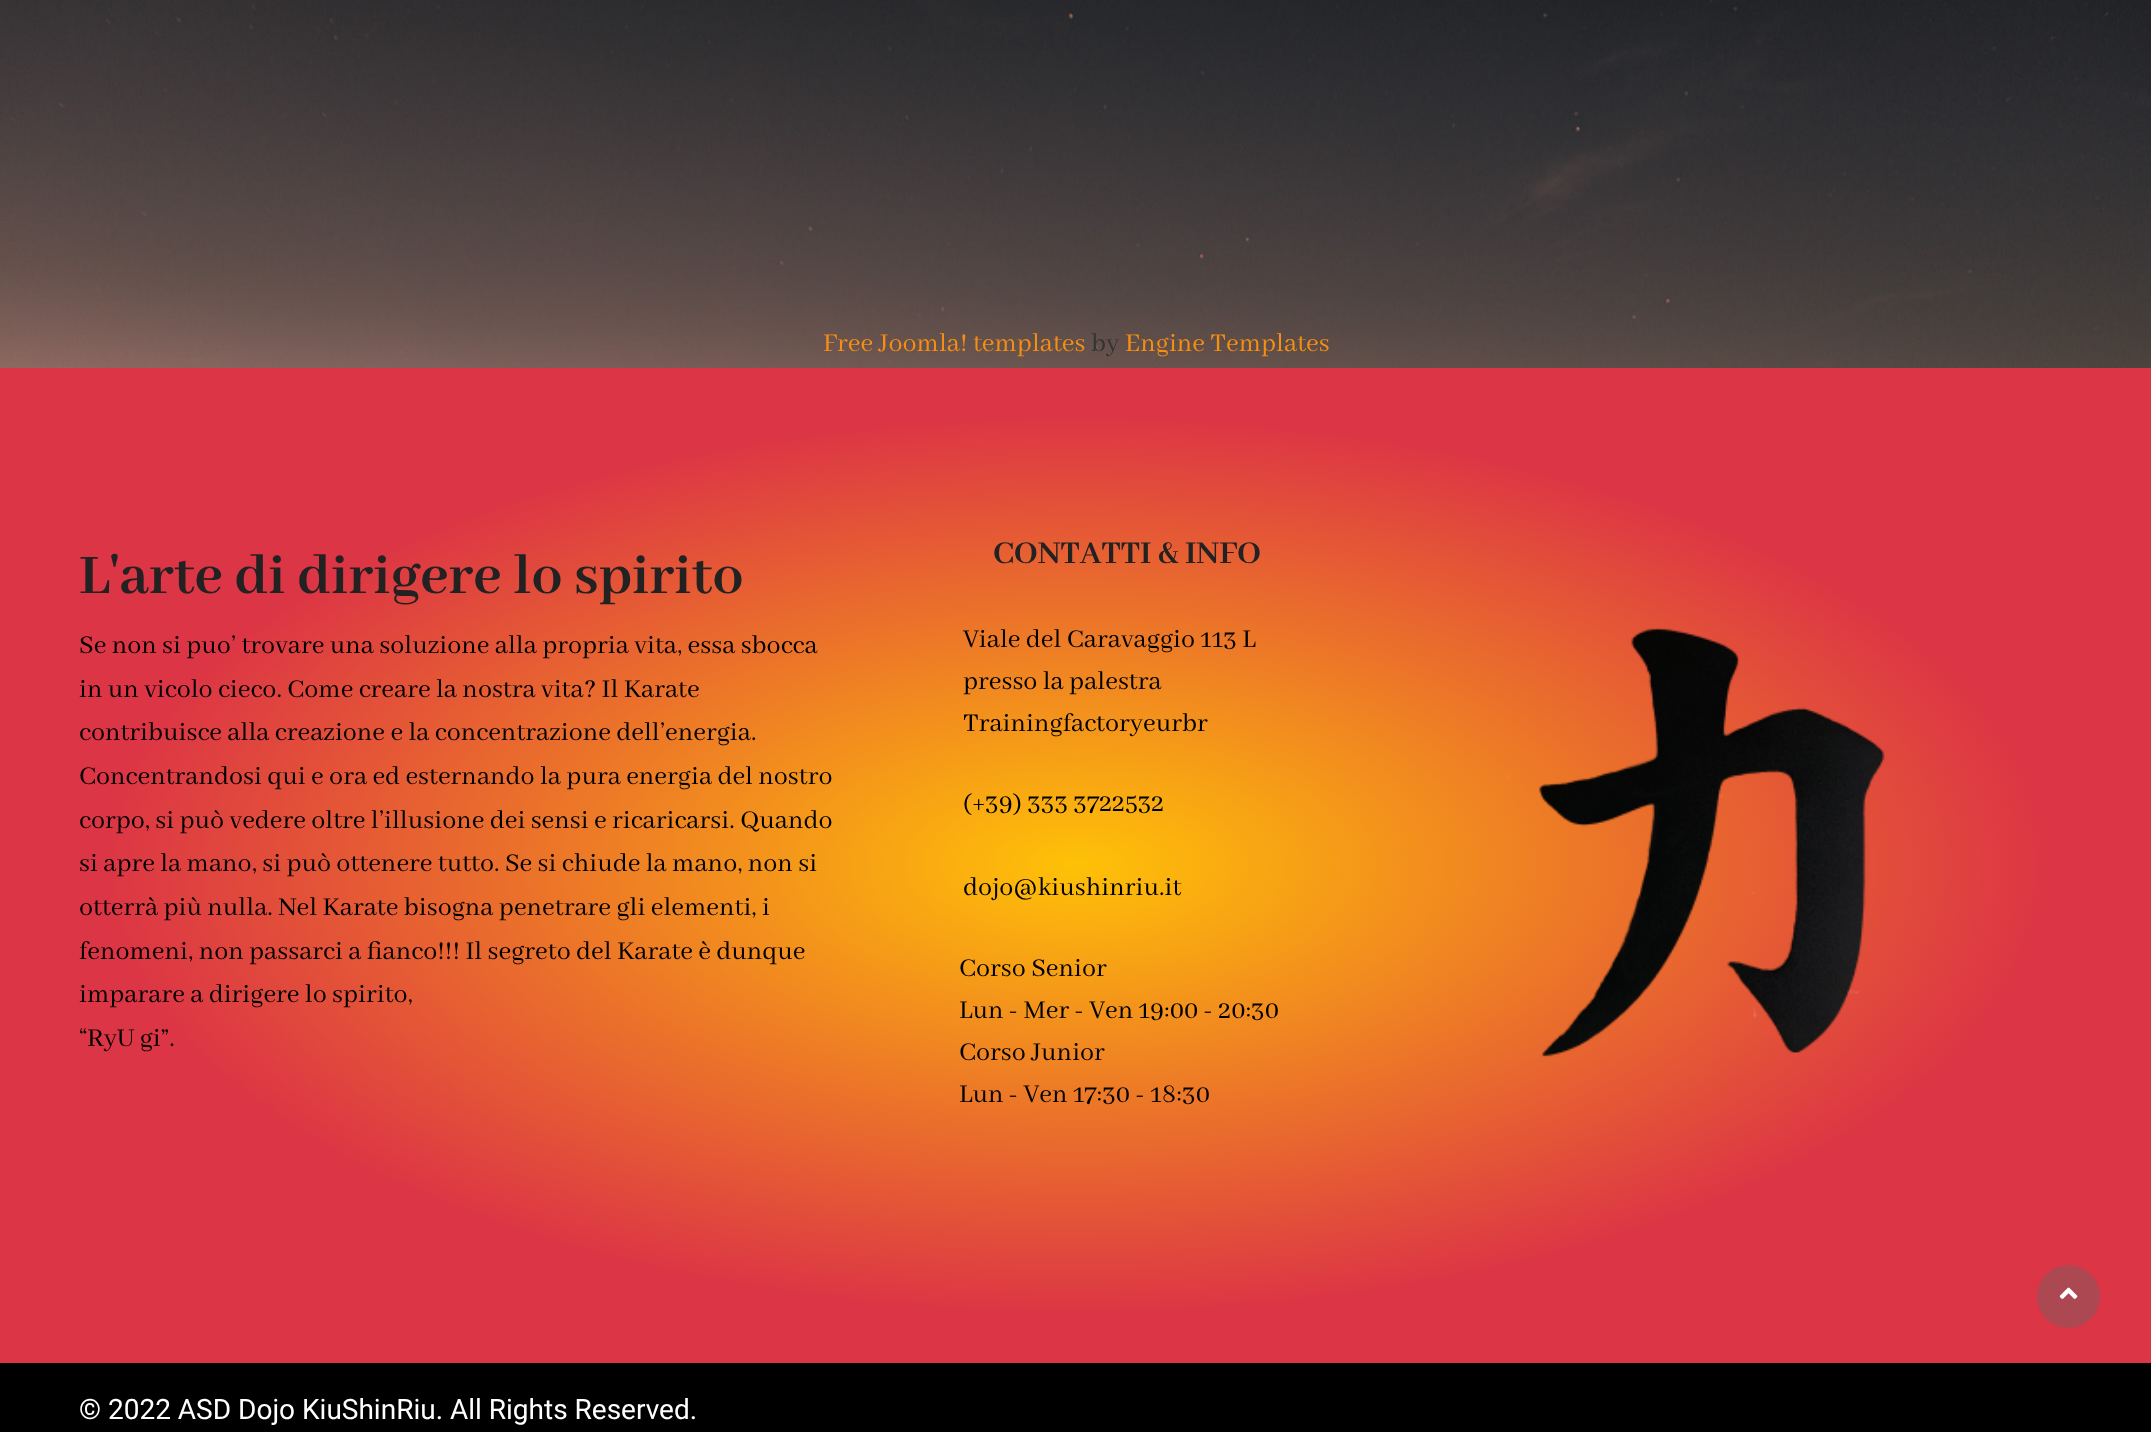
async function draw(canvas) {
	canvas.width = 2151;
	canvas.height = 1432;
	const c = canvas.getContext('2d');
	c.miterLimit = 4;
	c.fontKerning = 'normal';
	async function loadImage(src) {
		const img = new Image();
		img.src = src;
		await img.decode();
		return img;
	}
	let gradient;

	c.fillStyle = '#fff';
	c.fillRect(0, 0, 2151, 1432);
	c.drawImage(await loadImage('img1.png'), 0, 0, 2151, 368);
	c.font = '28px Abhaya Libre';
	c.fillStyle = '#f68e13';
	c.fillText('Free Joomla! templates', 823, 351);
	c.fillStyle = '#333';
	c.fillText('by', 1091, 351);
	c.fillStyle = '#f68e13';
	c.fillText('Engine Templates', 1125, 351);
	gradient = c.createRadialGradient(1076, 1870.07, 0, 1076, 1870.07, 1522);
	gradient.addColorStop(0, '#ffc107');
	gradient.addColorStop(0.64, '#dc3545');
	c.fillStyle = gradient;
	c.beginPath();
	c.rect(0, 368, 2151, 995);
	c.save();
	c.clip();
	c.scale(1, 704 / 1522);
	c.fillRect(0, 0, 2151, 3096);
	c.restore();
	c.font = 'bold 61.25px Abhaya Libre';
	c.fillStyle = '#222';
	c.fillText('L\'arte di dirigere lo spirito', 79, 593);
	c.font = '28px Abhaya Libre';
	c.fillStyle = '#000';
	for (const [text, x, y] of [
		['Se non si puo’ trovare una soluzione alla propria vita, essa sbocca', 79, 653],
		['in un vicolo cieco. Come creare la nostra vita? Il Karate', 79, 697],
		['contribuisce alla creazione e la concentrazione dell’energia.', 79, 740],
		['Concentrandosi qui e ora ed esternando la pura energia del nostro', 79, 784],
		['corpo, si può vedere oltre l’illusione dei sensi e ricaricarsi. Quando', 79, 828],
		['si apre la mano, si può ottenere tutto. Se si chiude la mano, non si', 79, 871],
		['otterrà più nulla. Nel Karate bisogna penetrare gli elementi, i', 79, 915],
		['fenomeni, non passarci a fianco!!! Il segreto del Karate è dunque', 79, 959],
		['imparare a dirigere lo spirito,', 79, 1002],
		['“RyU gi”.', 79, 1046],
	]) {
		c.fillText(text, x, y);
	}
	c.font = 'bold 35px Abhaya Libre';
	c.fillStyle = '#222';
	c.fillText('CONTATTI & INFO', 993, 563);
	c.font = '28px Abhaya Libre';
	c.fillStyle = '#000';
	for (const [text, x, y] of [
		['Viale del Caravaggio 113 L', 963, 647],
		['presso la palestra', 963, 689],
		['Trainingfactoryeurbr', 963, 731],
		['(+39) 333 3722532', 963, 811],
		['dojo@kiushinriu.it', 963, 895],
		['Corso Senior', 959, 976],
		['Lun - Mer - Ven 19:00 - 20:30', 959, 1018],
		['Corso Junior', 959, 1060],
		['Lun - Ven 17:30 - 18:30', 959, 1102],
	]) {
		c.fillText(text, x, y);
	}
	c.drawImage(await loadImage('img2.png'), 1506, 627, 519, 435);
	c.fillRect(0, 1363, 2151, 69);
	c.font = '28px Roboto';
	c.fillStyle = '#fff';
	c.fillText('© 2022 ASD Dojo KiuShinRiu. All Rights Reserved.', 79, 1419);
	c.fillStyle = '#ac4851';
	c.beginPath();
	c.arc(2068.5, 1296.5, 31.5, 0, 2 * Math.PI);
	c.fill();
	c.drawImage(await loadImage('img3.png'), 2059, 1287, 19, 12);
}

draw(document.querySelector('canvas'));
